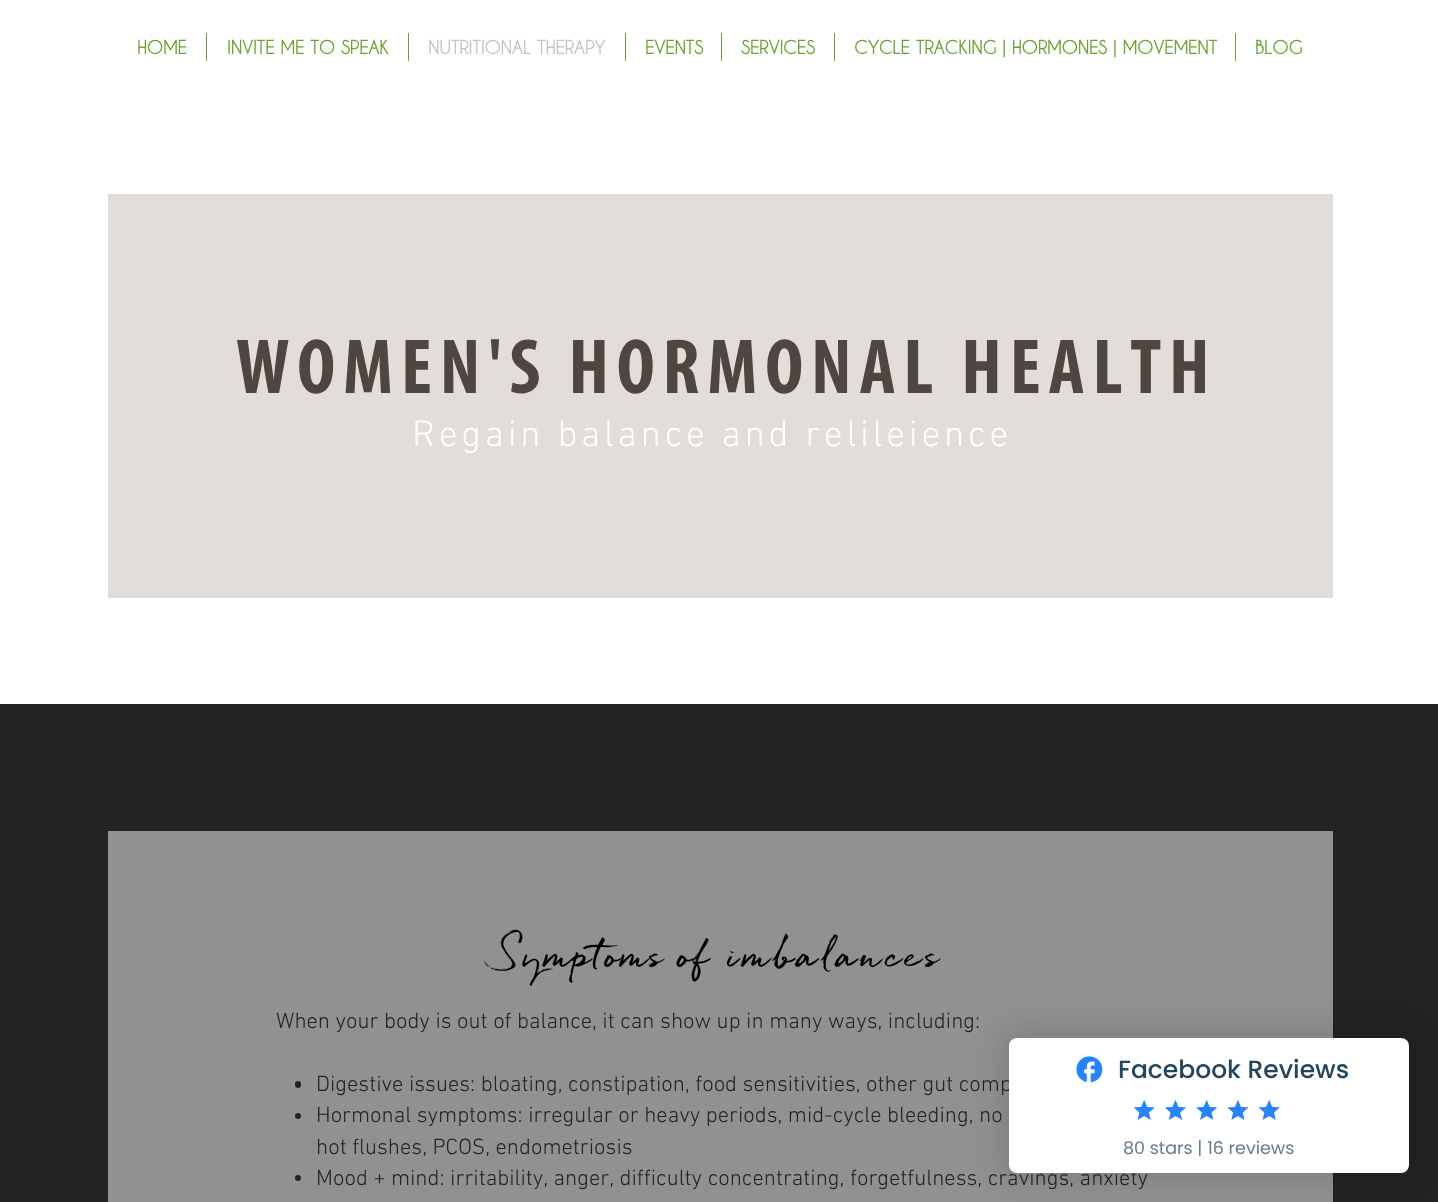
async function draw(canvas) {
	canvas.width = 1438;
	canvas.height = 1202;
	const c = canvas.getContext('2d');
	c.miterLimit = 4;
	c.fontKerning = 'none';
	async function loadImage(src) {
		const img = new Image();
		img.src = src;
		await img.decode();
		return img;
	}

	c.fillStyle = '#fff';
	c.fillRect(0, 0, 1438, 1202);
	c.font = 'bold 17.5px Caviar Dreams';
	c.fillStyle = '#6ca231';
	c.fillText('HOME', 137, 54);
	c.fillRect(206, 33, 1, 28);
	c.fillText('INVITE ME TO SPEAK', 227, 54);
	c.fillRect(408, 33, 1, 28);
	c.fillStyle = '#cac0bd';
	c.fillText('NUTRITIONAL THERAPY', 428, 54);
	c.fillStyle = '#6ca231';
	c.fillRect(625, 33, 1, 28);
	c.fillText('EVENTS', 645, 54);
	c.fillRect(721, 33, 1, 28);
	c.fillText('SERVICES', 741, 54);
	c.fillRect(834, 33, 1, 28);
	c.fillText('CYCLE TRACKING | HORMONES | MOVEMENT', 854, 54);
	c.fillRect(1235, 33, 1, 28);
	c.fillText('BLOG', 1255, 54);
	c.fillStyle = '#e2dddb';
	c.fillRect(108, 194, 1225, 404);
	c.letterSpacing = '7.8px';
	c.font = 'bold 78.75px Myriad';
	c.fillStyle = '#4f473f';
	c.fillText('WOMEN\'S HORMONAL HEALTH', 236, 393);
	c.letterSpacing = '3.75px';
	c.font = '300 37.5px "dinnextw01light"';
	c.fillStyle = '#fff';
	c.fillText('Regain balance and relileience', 412, 446);
	c.fillStyle = '#242323';
	c.fillRect(0, 704, 1438, 498);
	c.fillStyle = '#929191';
	c.fillRect(108, 831, 1225, 371);
	c.letterSpacing = '1.75px';
	c.wordSpacing = '-2px';
	c.font = '36.25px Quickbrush';
	c.fillStyle = '#000';
	c.fillText('Symptoms of', 490, 966);
	c.letterSpacing = '3.75px';
	c.wordSpacing = '0px';
	c.fillText('imbalances', 728, 966);
	c.letterSpacing = '0px';
	c.font = '300 22.5px "dinnextw01light"';
	c.fillStyle = '#242323';
	c.fillText('When your body is out of balance, it can show up in many ways, including:', 276, 1028);
	c.beginPath();
	c.roundRect(295, 1081, 6, 7, 3);
	c.fill();
	c.fillText('Digestive issues: bloating, constipation, food sensitivities, other gut comp', 316, 1091);
	c.beginPath();
	c.arc(298, 1116, 3, 0, 2 * Math.PI);
	c.fill();
	c.fillText('Hormonal symptoms: irregular or heavy periods, mid-cycle bleeding, no', 316, 1122);
	c.fillText('hot flushes, PCOS, endometriosis', 316, 1154);
	c.beginPath();
	c.arc(298, 1178, 3, 0, 2 * Math.PI);
	c.fill();
	c.fillText('Mood + mind: irritability, anger, difficulty concentrating,', 316, 1185);
	c.fillText('forgetfulness, cravings, anxiety', 850, 1185);
	c.fillStyle = '#0000001f';
	c.filter = 'blur(15px)';
	c.beginPath();
	c.roundRect(1001, 1030, 415, 150, 15);
	c.fill();
	c.filter = 'none';
	c.fillStyle = '#fff';
	c.beginPath();
	c.roundRect(1009, 1038, 400, 135, 8);
	c.fill();
	c.drawImage(await loadImage('img1.png'), 1076, 1056, 27, 27);
	c.font = '500 25px Poppins';
	c.fillStyle = '#20455e';
	c.fillText('Facebook Reviews', 1118, 1078);
	c.drawImage(await loadImage('img3.png'), 1134, 1100, 21, 20);
	c.drawImage(await loadImage('img2.png'), 1133, 1100, 22, 20);
	c.drawImage(await loadImage('img4.png'), 1165, 1100, 21, 20);
	c.drawImage(await loadImage('img5.png'), 1165, 1100, 21, 20);
	c.drawImage(await loadImage('img6.png'), 1196, 1100, 21, 20);
	c.drawImage(await loadImage('img7.png'), 1196, 1100, 21, 20);
	c.drawImage(await loadImage('img8.png'), 1227, 1100, 22, 20);
	c.drawImage(await loadImage('img9.png'), 1227, 1100, 22, 20);
	c.drawImage(await loadImage('img3.png'), 1259, 1100, 21, 20);
	c.drawImage(await loadImage('img2.png'), 1258, 1100, 22, 20);
	c.font = '17.5px Poppins';
	c.fillStyle = '#637d8e';
	c.fillText('80 stars | 16 reviews', 1123, 1154);
}

draw(document.querySelector('canvas'));
